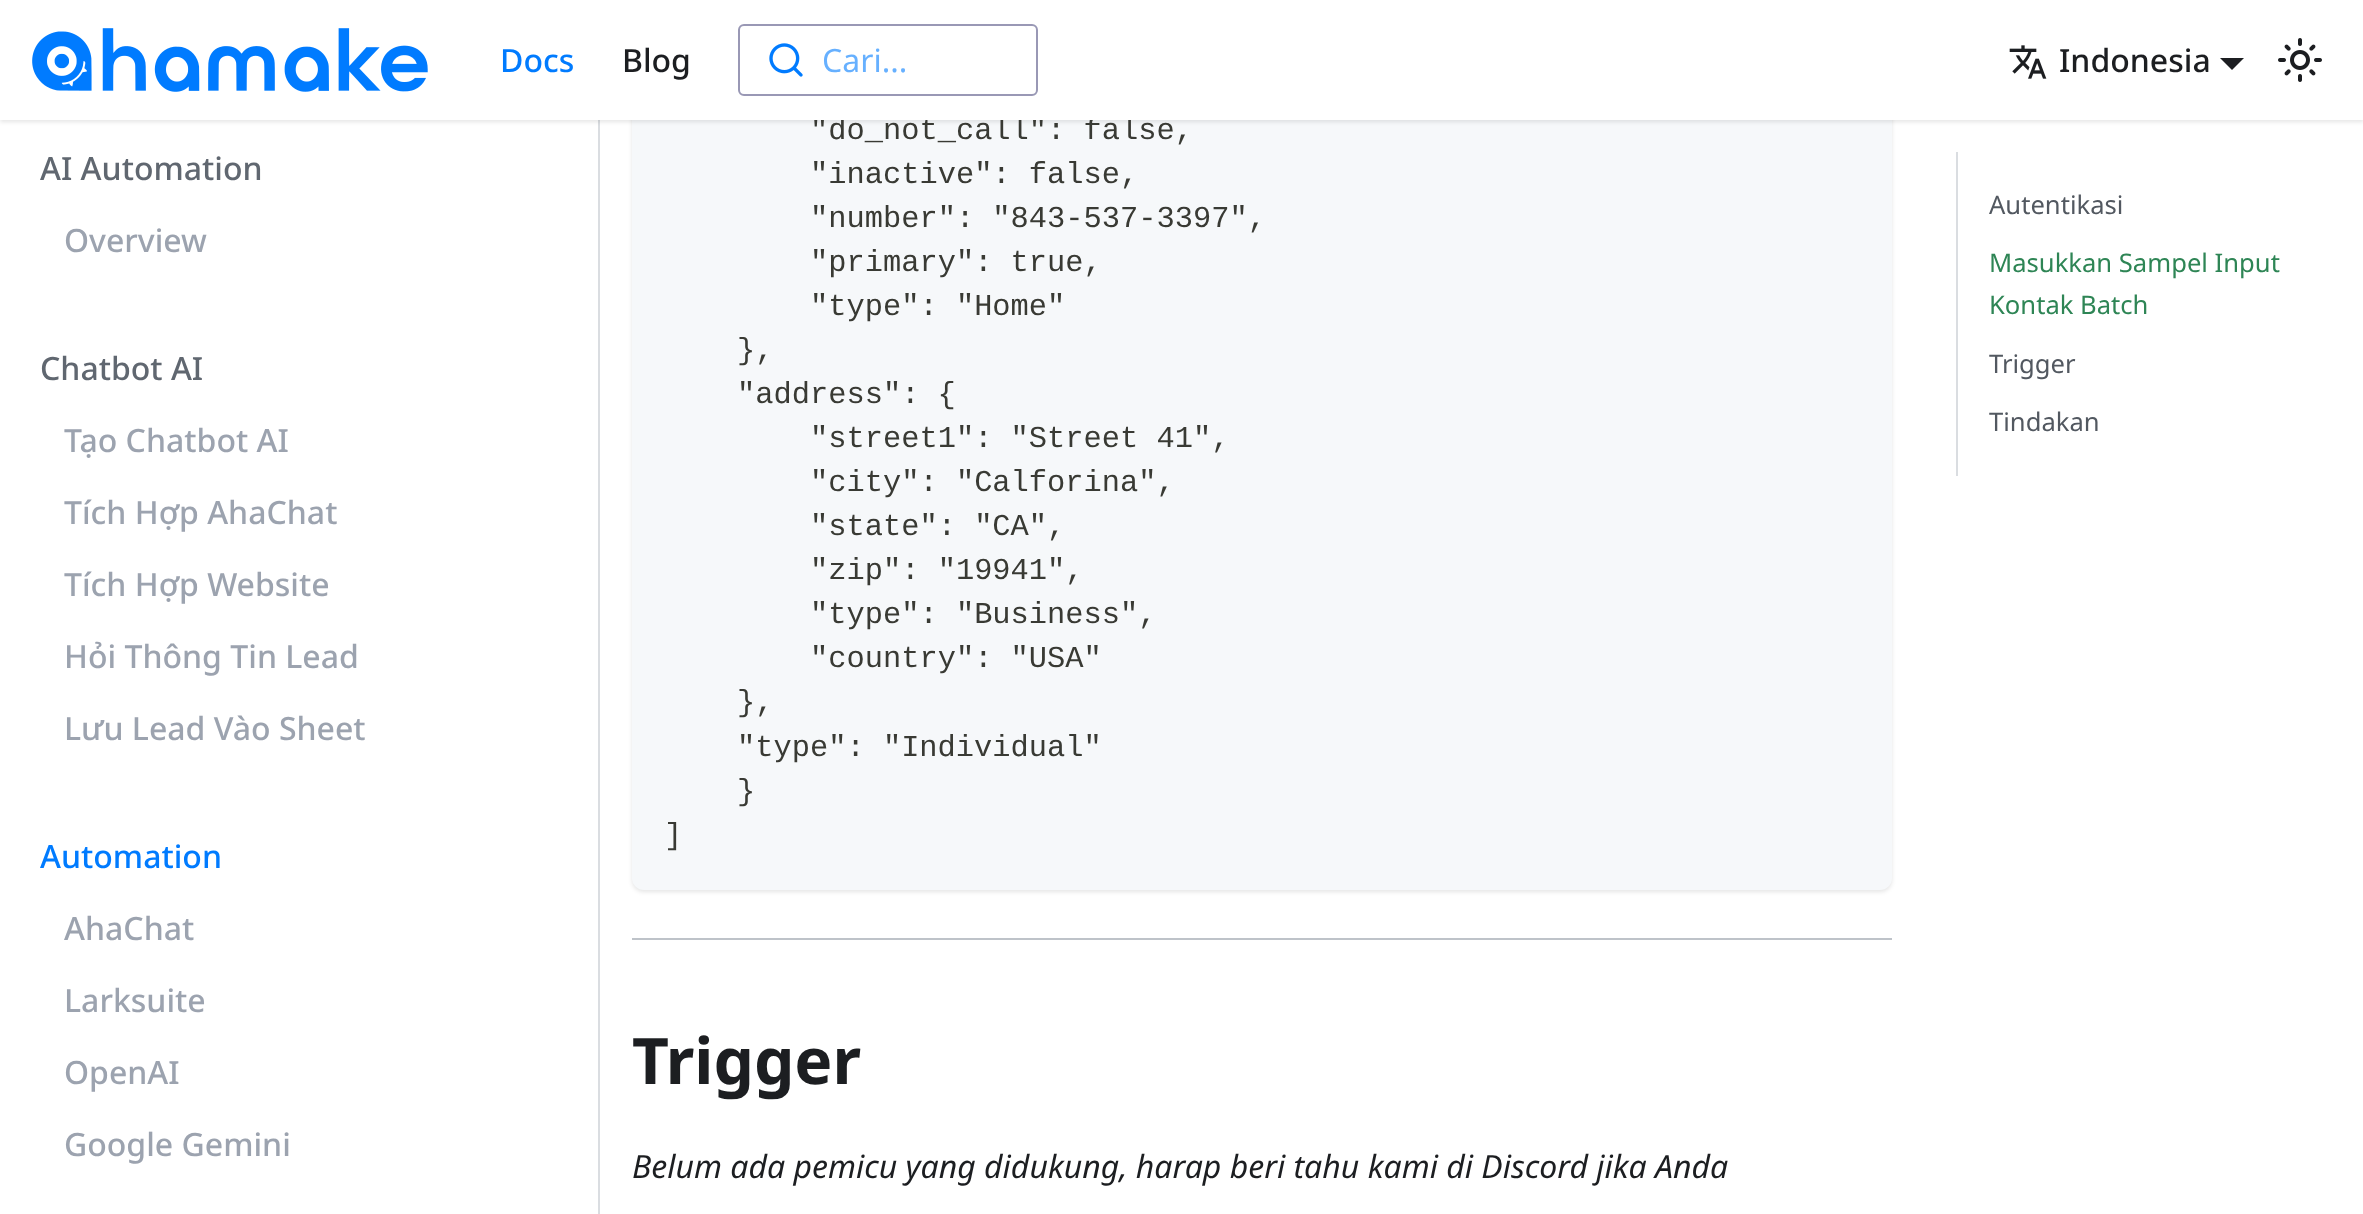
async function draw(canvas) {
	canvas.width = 2363;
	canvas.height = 1214;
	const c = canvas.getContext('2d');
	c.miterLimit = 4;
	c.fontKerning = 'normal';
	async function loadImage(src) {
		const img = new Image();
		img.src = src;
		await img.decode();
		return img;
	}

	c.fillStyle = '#fff';
	c.fillRect(0, 0, 2363, 1214);
	c.fillStyle = '#dadde1';
	c.fillRect(598, 120, 2, 1094);
	c.fillStyle = '#0000001a';
	c.filter = 'blur(2px)';
	c.beginPath();
	c.roundRect(632, -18, 1260, 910, 12);
	c.fill();
	c.filter = 'none';
	c.fillStyle = '#f6f8fa';
	c.beginPath();
	c.roundRect(632, -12, 1260, 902, 12);
	c.fill();
	c.fillStyle = '#0000001a';
	c.filter = 'blur(2px)';
	c.beginPath();
	c.rect(0, 2, 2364, 120);
	c.fill();
	c.filter = 'none';
	c.font = '30.4px Liberation Mono';
	c.fillStyle = '#393a34';
	c.fillText('"do_not_call": false,', 810, 139);
	c.fillStyle = '#fff';
	c.fillRect(0, 0, 2363, 120);
	c.drawImage(await loadImage('img1.png'), 32, 28, 396, 64);
	c.font = '500 32px Noto Sans';
	c.fillStyle = '#007bff';
	c.fillText('Docs', 500, 72);
	c.fillStyle = '#1c1e21';
	c.fillText('Blog', 622, 72);
	c.beginPath();
	c.roundRect(739, 25, 298, 70, 5);
	c.strokeStyle = '#9998b5';
	c.lineWidth = 2;
	c.stroke();
	c.drawImage(await loadImage('img2.png'), 769, 43, 34, 34);
	c.font = '32px Noto Sans';
	c.fillStyle = '#66b0ff';
	c.fillText('Cari...', 822, 72);
	c.drawImage(await loadImage('img3.png'), 2009, 45, 38, 34);
	c.font = '500 32px Noto Sans';
	c.fillStyle = '#1c1e21';
	c.fillText('Indonesia', 2059, 72);
	c.beginPath();
	c.moveTo(2220, 58);
	c.lineTo(2244, 58);
	c.lineTo(2232, 70);
	c.closePath();
	c.fill();
	c.drawImage(await loadImage('img4.png'), 2278, 38, 44, 44);
	c.fillStyle = '#606770';
	c.fillText('AI Automation', 40, 180);
	c.fillStyle = '#9ca3af';
	c.fillText('Overview', 64, 252);
	c.fillStyle = '#606770';
	c.fillText('Chatbot AI', 40, 380);
	c.fillStyle = '#9ca3af';
	for (const [text, x, y] of [
		['Tạo Chatbot AI', 64, 452],
		['Tích Hợp AhaChat', 64, 524],
		['Tích Hợp Website', 64, 596],
		['Hỏi Thông Tin Lead', 64, 668],
		['Lưu Lead Vào Sheet', 64, 740],
	]) {
		c.fillText(text, x, y);
	}
	c.fillStyle = '#007bff';
	c.fillText('Automation', 40, 868);
	c.fillStyle = '#9ca3af';
	for (const [text, x, y] of [
		['AhaChat', 64, 940],
		['Larksuite', 64, 1012],
		['OpenAI', 64, 1084],
		['Google Gemini', 64, 1156],
	]) {
		c.fillText(text, x, y);
	}
	c.font = '30.4px Liberation Mono';
	c.fillStyle = '#393a34';
	for (const [text, x, y] of [
		['"inactive": false,', 810, 183],
		['"number": "843-537-3397",', 810, 227],
		['"primary": true,', 810, 271],
		['"type": "Home"', 810, 315],
		['},', 737, 359],
		['"address": {', 737, 403],
		['"street1": "Street 41",', 810, 447],
		['"city": "Calforina",', 810, 491],
		['"state": "CA",', 810, 535],
		['"zip": "19941",', 810, 579],
		['"type": "Business",', 810, 623],
		['"country": "USA"', 810, 667],
		['},', 737, 711],
		['"type": "Individual"', 737, 756],
		['}', 737, 800],
		[']', 664, 844],
	]) {
		c.fillText(text, x, y);
	}
	c.fillStyle = '#bec3c9';
	c.fillRect(632, 938, 1260, 2);
	c.font = 'bold 64px Noto Sans';
	c.fillStyle = '#1c1e21';
	c.fillText('Trigger', 632, 1084);
	c.font = 'italic 32px Noto Sans';
	c.fillText('Belum ada pemicu yang didukung, harap beri tahu kami di Discord jika Anda', 632, 1178);
	c.fillStyle = '#dadde1';
	c.fillRect(1956, 152, 2, 324);
	c.font = '25.6px Noto Sans';
	c.fillStyle = '#525860';
	c.fillText('Autentikasi', 1989, 214);
	c.fillStyle = '#2e8555';
	c.fillText('Masukkan Sampel Input', 1989, 272);
	c.fillText('Kontak Batch', 1989, 314);
	c.fillStyle = '#525860';
	c.fillText('Trigger', 1989, 373);
	c.fillText('Tindakan', 1989, 431);
}

draw(document.querySelector('canvas'));
